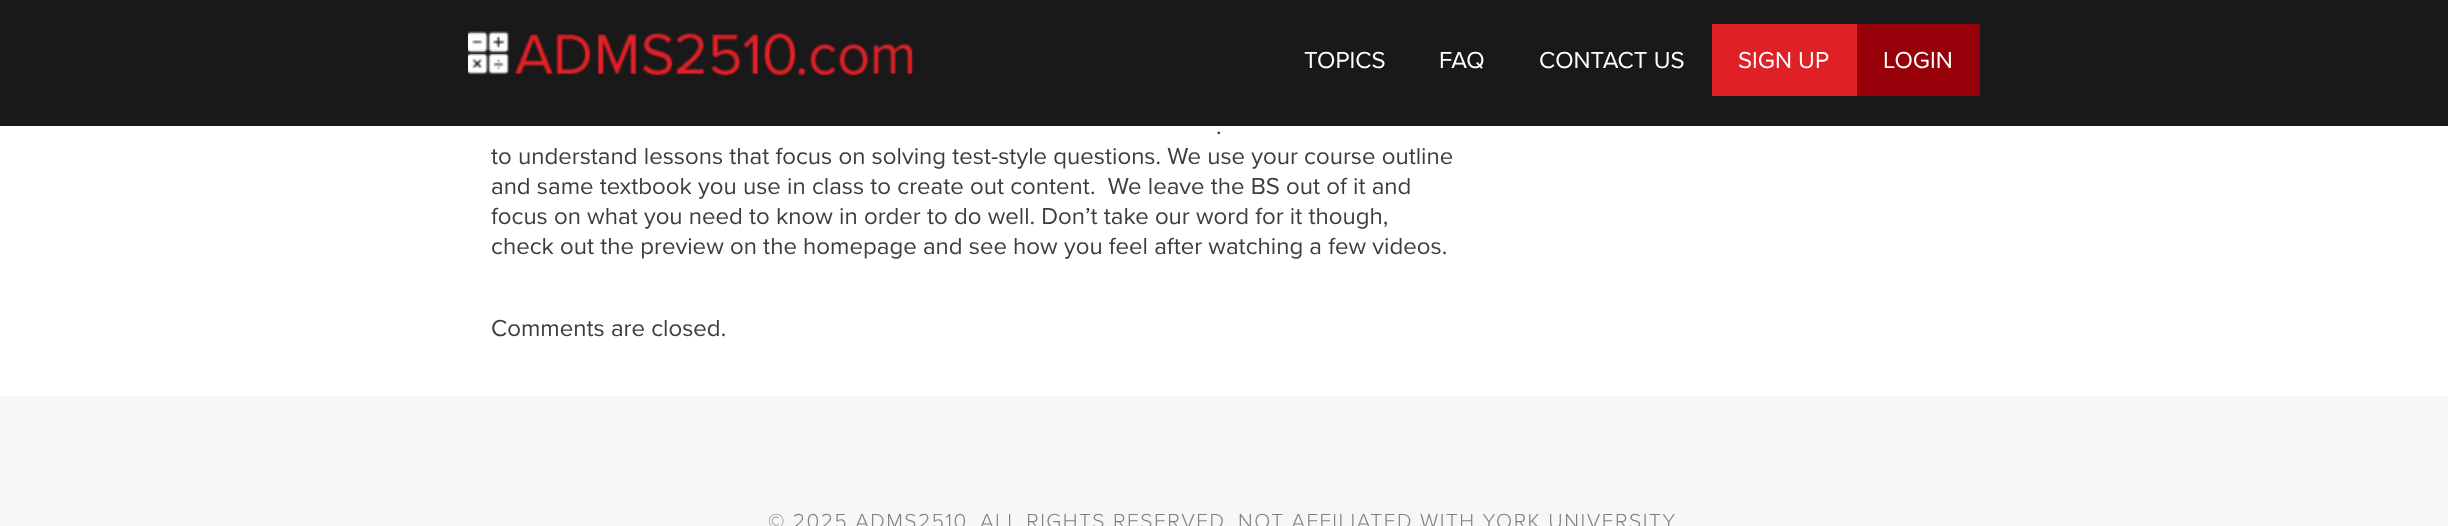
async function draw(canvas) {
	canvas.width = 2448;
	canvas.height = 526;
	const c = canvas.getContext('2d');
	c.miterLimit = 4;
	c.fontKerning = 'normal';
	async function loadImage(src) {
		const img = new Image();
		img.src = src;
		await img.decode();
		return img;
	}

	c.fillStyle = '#fff';
	c.fillRect(0, 0, 2448, 526);
	c.fillStyle = '#000000e6';
	c.fillRect(0, 0, 2448, 126);
	c.drawImage(await loadImage('img1.png'), 468, 31, 446, 45);
	c.font = '24px Proxima Nova';
	c.fillStyle = '#fff';
	for (const [text, x, y] of [
		['TOPICS', 1304, 68],
		['FAQ', 1439, 68],
		['CONTACT US', 1539, 68],
	]) {
		c.fillText(text, x, y);
	}
	c.fillStyle = '#e02027';
	c.fillRect(1712, 24, 145, 72);
	c.fillStyle = '#fff';
	c.fillText('SIGN UP', 1738, 68);
	c.fillStyle = '#970109';
	c.fillRect(1857, 24, 123, 72);
	c.fillStyle = '#fff';
	c.fillText('LOGIN', 1883, 68);
	c.fillStyle = '#3d3d3d';
	for (const [text, x, y] of [
		['.', 1216, 134],
		['to understand lessons that focus on solving test-style questions. We use your course outline', 491, 164],
		['and same textbook you use in class to create out content.  We leave the BS out of it and', 491, 194],
		['focus on what you need to know in order to do well. Don’t take our word for it though,', 491, 224],
		['check out the preview on the homepage and see how you feel after watching a few videos.', 491, 254],
		['Comments are closed.', 491, 336],
	]) {
		c.fillText(text, x, y);
	}
	c.fillStyle = '#f7f7f7';
	c.fillRect(0, 396, 2448, 130);
	c.letterSpacing = '1.5px';
	c.font = '300 21px Proxima Nova';
	c.fillStyle = '#808080';
	c.fillText('© 2025 ADMS2510. ALL RIGHTS RESERVED. NOT AFFILIATED WITH YORK UNIVERSITY.', 768, 528);
}

draw(document.querySelector('canvas'));
